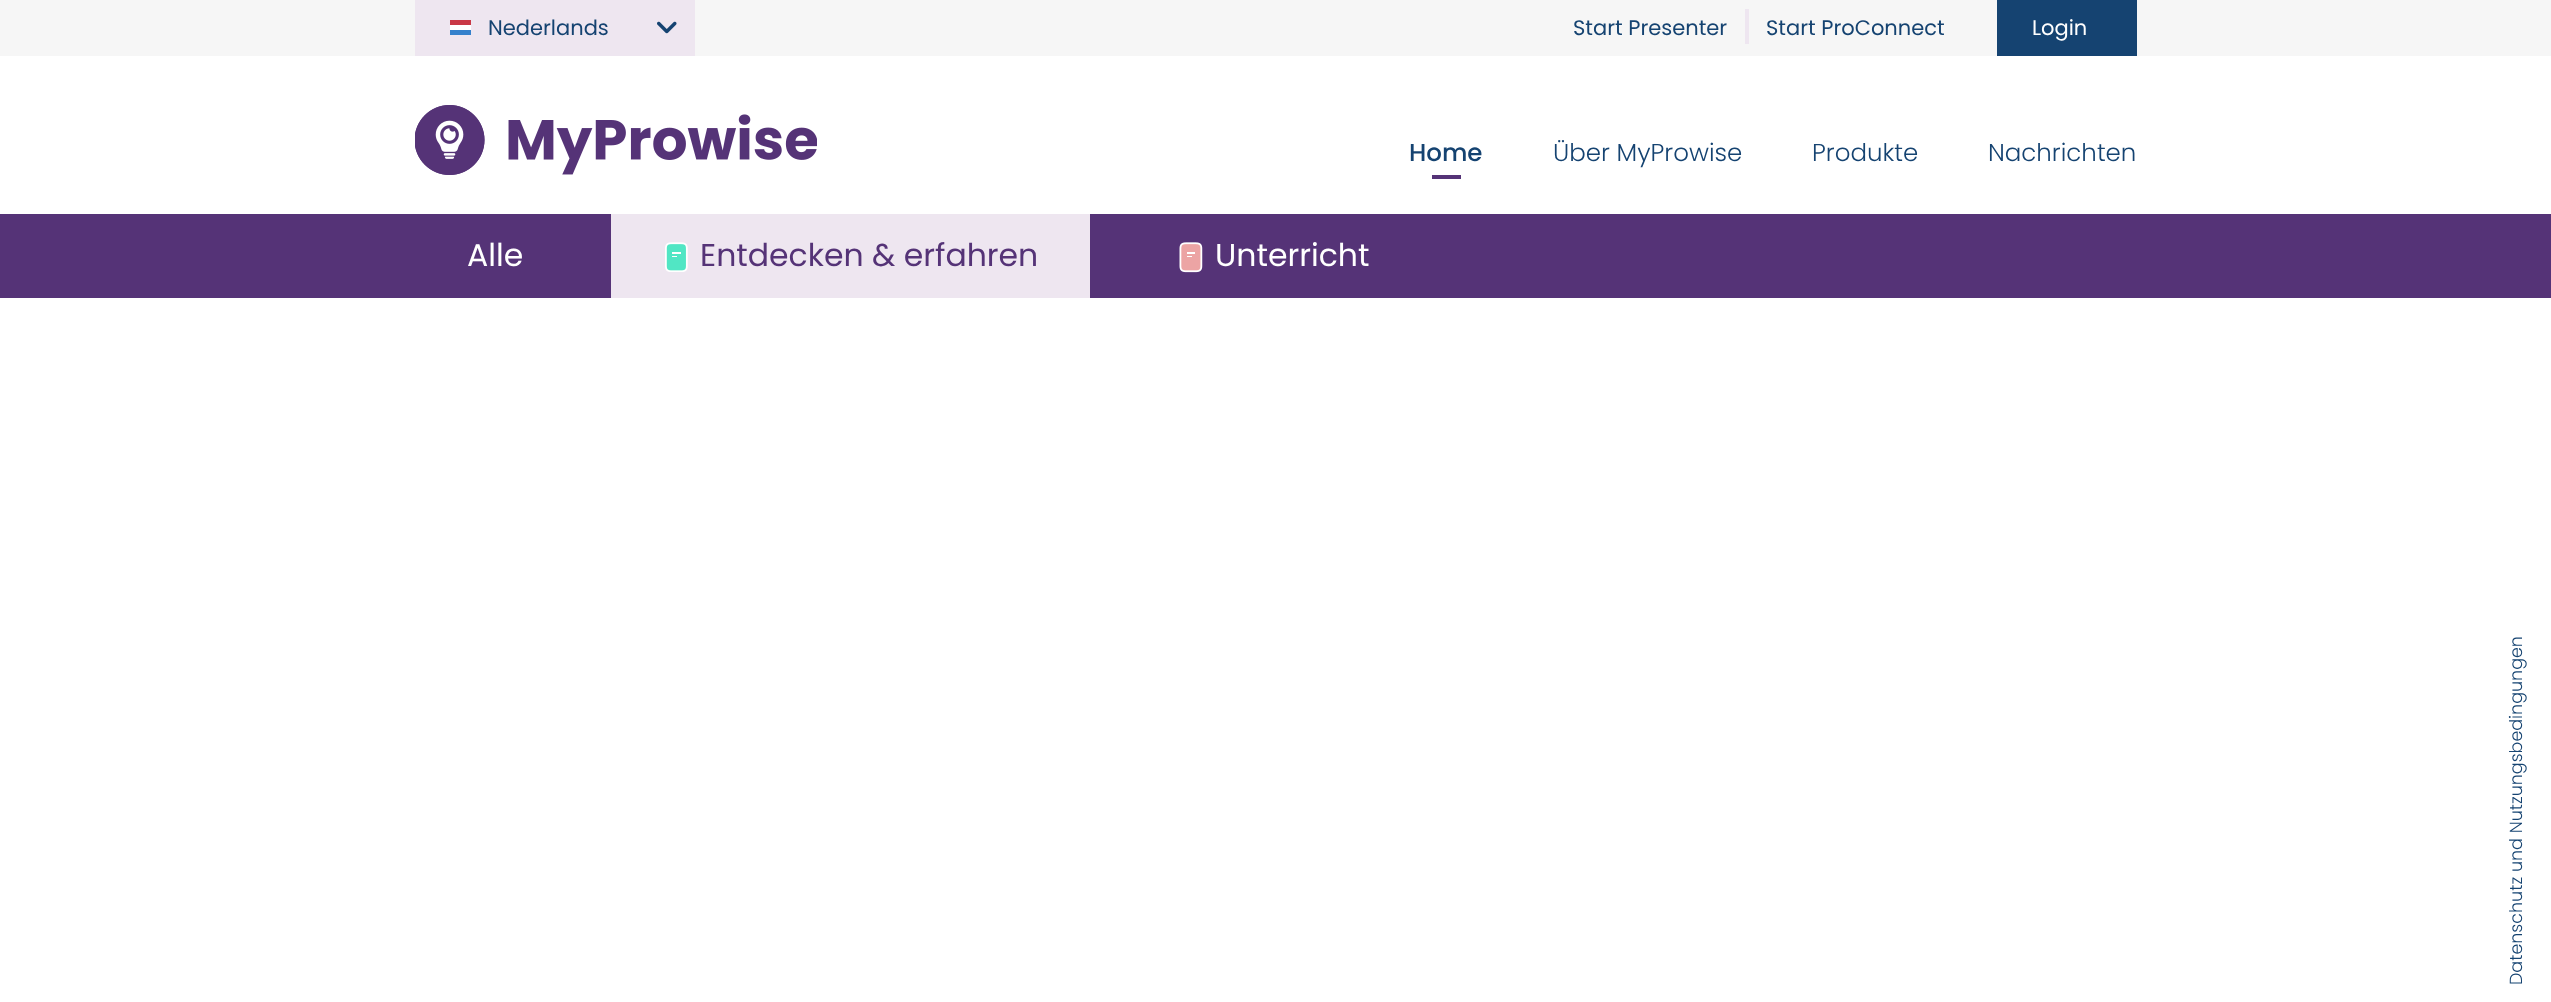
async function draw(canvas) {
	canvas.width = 2551;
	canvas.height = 1002;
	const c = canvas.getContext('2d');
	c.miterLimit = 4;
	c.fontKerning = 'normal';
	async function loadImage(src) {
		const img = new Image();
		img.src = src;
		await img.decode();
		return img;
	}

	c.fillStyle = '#fff';
	c.fillRect(0, 0, 2551, 1002);
	for (const [x, y, w, h, color] of [
		[0, 0, 2551, 56, '#f6f6f6'],
		[415, 0, 280, 56, '#eee6f0'],
		[450, 20, 21, 5, '#c93846'],
		[450, 25, 21, 5, '#fff'],
		[450, 30, 21, 5, '#3581cc'],
	]) {
		c.fillStyle = color;
		c.fillRect(x, y, w, h);
	}
	c.font = '21px Poppins';
	c.fillStyle = '#154371';
	c.fillText('Nederlands', 488, 35);
	c.drawImage(await loadImage('img1.png'), 657, 21, 20, 13);
	c.fillText('Start Presenter', 1573, 35);
	c.fillStyle = '#eee6f0';
	c.fillRect(1745, 9, 4, 35);
	c.fillStyle = '#154371';
	c.fillText('Start ProConnect', 1766, 35);
	c.fillRect(1997, 0, 140, 56);
	c.fillStyle = '#fff';
	c.fillText('Login', 2032, 35);
	c.drawImage(await loadImage('img2.png'), 415, 105, 402, 70);
	c.font = '500 24.5px Poppins';
	c.fillStyle = '#154371';
	c.fillText('Home', 1409, 161);
	c.fillStyle = '#537';
	c.fillRect(1432, 175, 29, 4);
	c.font = '300 24.5px Poppins';
	c.fillStyle = '#154371';
	for (const [text, x, y] of [
		['Über MyProwise', 1553, 161],
		['Produkte', 1812, 161],
		['Nachrichten', 1988, 161],
	]) {
		c.fillText(text, x, y);
	}
	c.fillStyle = '#537';
	c.fillRect(0, 214, 2551, 84);
	c.font = '31.5px Poppins';
	c.fillStyle = '#fff';
	c.fillText('Alle', 467, 266);
	c.fillStyle = '#eee6f0';
	c.fillRect(611, 214, 479, 84);
	c.drawImage(await loadImage('img3.png'), 665, 242, 23, 30);
	c.fillStyle = '#537';
	c.fillText('Entdecken & erfahren', 700, 266);
	c.drawImage(await loadImage('img4.png'), 1179, 242, 24, 31);
	c.fillStyle = '#fff';
	c.fillText('Unterricht', 1215, 266);
	c.font = '300 17.5px Poppins';
	c.fillStyle = '#154371';
	c.save();
	c.translate(2522, 985);
	c.rotate(-90 * Math.PI / 180);
	c.fillText('Datenschutz und Nutzungsbedingungen', 0, 0);
	c.restore();
}

draw(document.querySelector('canvas'));
